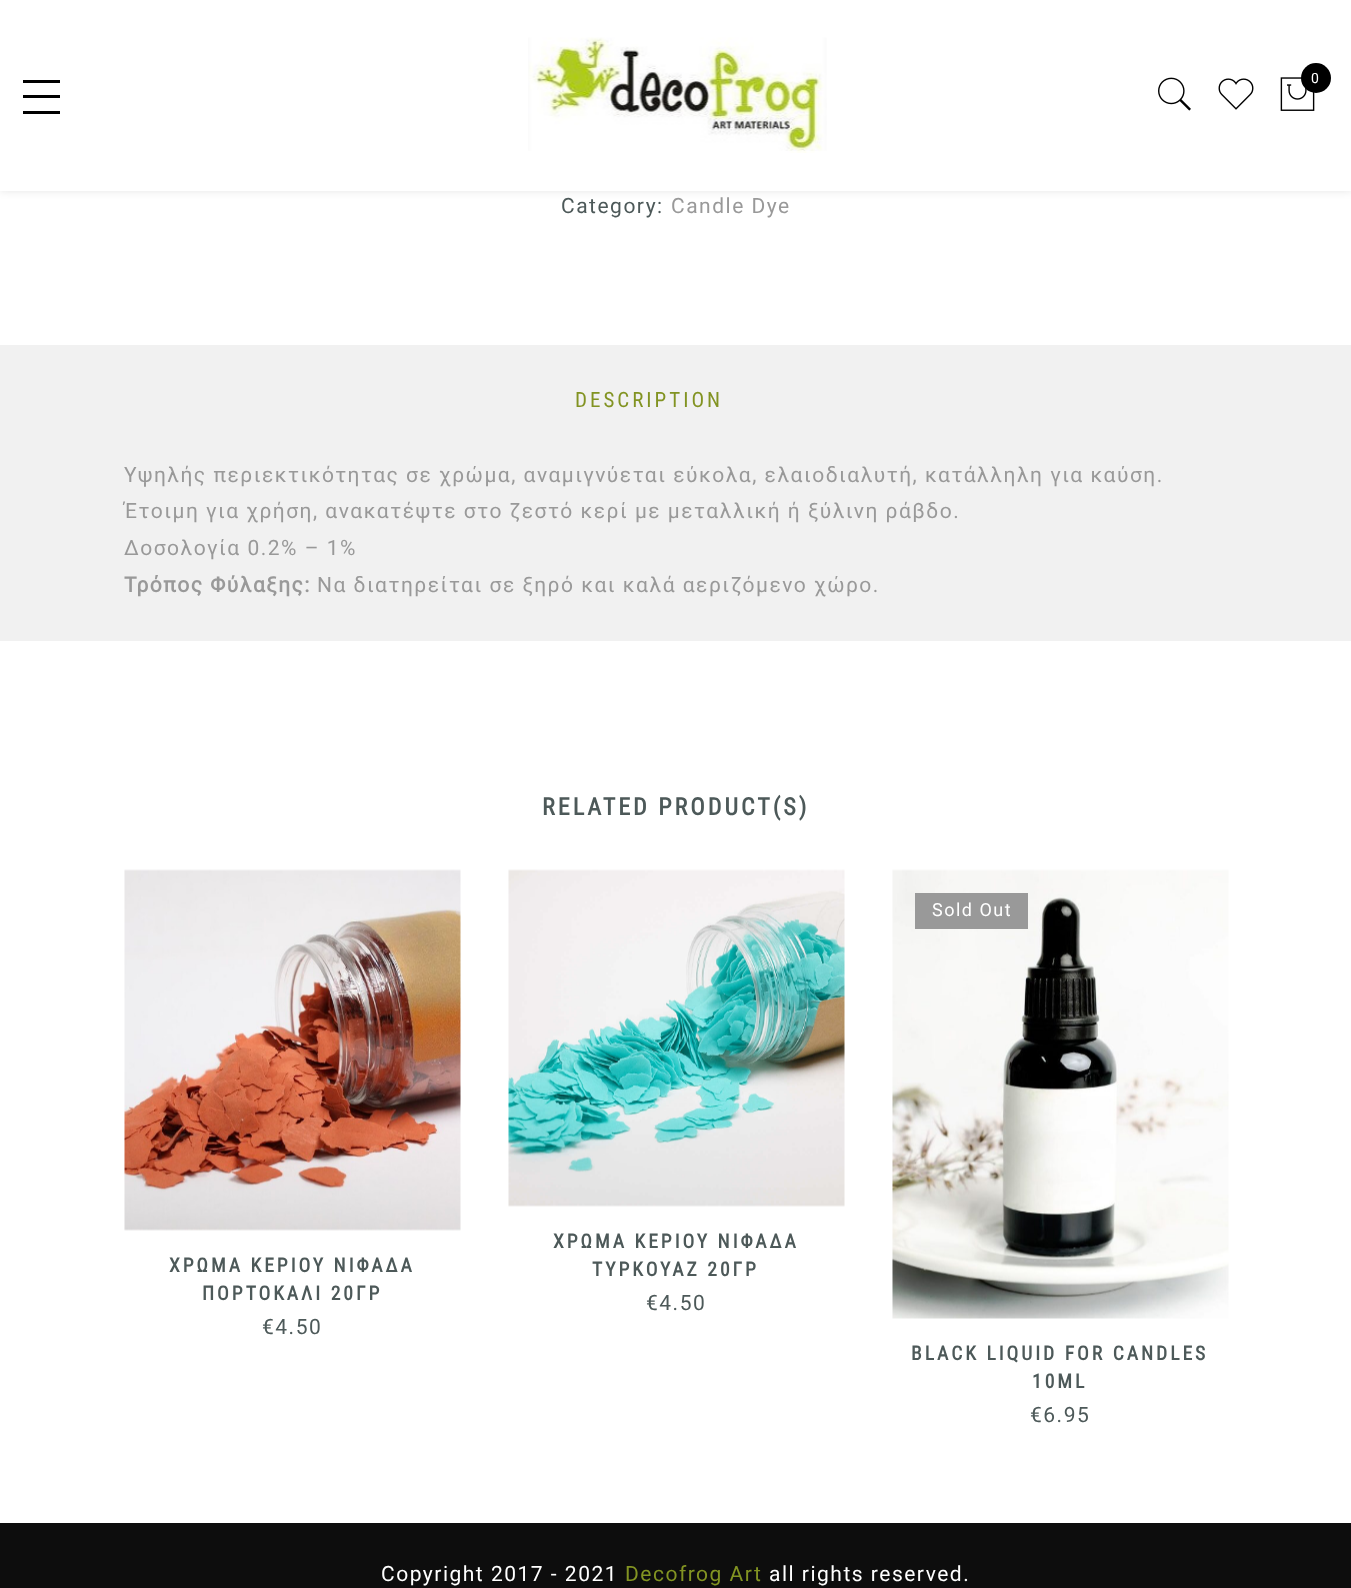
async function draw(canvas) {
	canvas.width = 1351;
	canvas.height = 1588;
	const c = canvas.getContext('2d');
	c.miterLimit = 4;
	c.fontKerning = 'normal';
	async function loadImage(src) {
		const img = new Image();
		img.src = src;
		await img.decode();
		return img;
	}

	c.fillStyle = '#fff';
	c.fillRect(0, 0, 1351, 1588);
	c.fillStyle = '#0000001a';
	c.filter = 'blur(4px)';
	c.beginPath();
	c.rect(0, 0, 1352, 191);
	c.fill();
	c.filter = 'none';
	c.fillStyle = '#fff';
	c.fillRect(0, 0, 1351, 191);
	c.drawImage(await loadImage('img1.png'), 528, 37, 299, 116);
	c.drawImage(await loadImage('img2.png'), 1158, 77, 33, 34);
	c.drawImage(await loadImage('img3.png'), 1218, 78, 36, 32);
	c.drawImage(await loadImage('img4.png'), 1280, 77, 35, 34);
	c.fillStyle = '#000';
	c.beginPath();
	c.arc(1316, 78, 15, 0, 2 * Math.PI);
	c.fill();
	c.letterSpacing = '1.5px';
	c.font = '14px Roboto';
	c.fillStyle = '#fff';
	c.fillText('0', 1311, 83);
	for (const [x, y, w, h, color] of [
		[23, 80, 37, 3, '#000'],
		[23, 95, 37, 3, '#000'],
		[23, 111, 37, 3, '#000'],
	]) {
		c.fillStyle = color;
		c.fillRect(x, y, w, h);
	}
	c.font = '21px Roboto';
	c.fillStyle = '#4d5959';
	c.fillText('Category:', 561, 213);
	c.fillStyle = '#999';
	c.fillText('Candle Dye', 671, 213);
	c.fillStyle = '#f1f1f1';
	c.fillRect(0, 345, 1351, 296);
	c.letterSpacing = '3px';
	c.font = '21px Roboto Condensed';
	c.fillStyle = '#829322';
	c.fillText('DESCRIPTION', 575, 407);
	c.letterSpacing = '1.5px';
	c.font = '21px Roboto';
	c.fillStyle = '#999';
	for (const [text, x, y] of [
		['Υψηλής περιεκτικότητας σε χρώμα, αναμιγνύεται εύκολα, ελαιοδιαλυτή, κατάλληλη για καύση.', 124, 482],
		['Έτοιμη για χρήση, ανακατέψτε στο ζεστό κερί με μεταλλική ή ξύλινη ράβδο.', 124, 518],
		['Δοσολογία 0.2% – 1%', 124, 555],
	]) {
		c.fillText(text, x, y);
	}
	c.font = 'bold 21px Roboto';
	c.fillText('Τρόπος Φύλαξης:', 124, 592);
	c.font = '21px Roboto';
	c.fillText('Να διατηρείται σε ξηρό και καλά αεριζόμενο χώρο.', 317, 592);
	c.letterSpacing = '3px';
	c.font = 'bold 24px Roboto Condensed';
	c.fillStyle = '#4d5959';
	c.fillText('RELATED PRODUCT(S)', 542, 815);
	c.drawImage(await loadImage('img5.png'), 124, 869, 337, 362);
	c.font = 'bold 19.5px Roboto Condensed';
	c.fillText('ΧΡΩΜΑ ΚΕΡΙΟΥ ΝΙΦΑΔΑ', 169, 1272);
	c.fillText('ΠΟΡΤΟΚΑΛΙ 20ΓΡ', 202, 1300);
	c.letterSpacing = '1.5px';
	c.font = '21px Roboto';
	c.fillText('€4.50', 262, 1334);
	c.drawImage(await loadImage('img6.png'), 508, 869, 337, 338);
	c.letterSpacing = '3px';
	c.font = 'bold 19.5px Roboto Condensed';
	c.fillText('ΧΡΩΜΑ ΚΕΡΙΟΥ ΝΙΦΑΔΑ', 553, 1248);
	c.fillText('ΤΥΡΚΟΥΑΖ 20ΓΡ', 592, 1276);
	c.letterSpacing = '1.5px';
	c.font = '21px Roboto';
	c.fillText('€4.50', 646, 1310);
	c.drawImage(await loadImage('img7.png'), 892, 869, 337, 450);
	c.fillStyle = '#999';
	c.fillRect(915, 893, 113, 36);
	c.font = '18px Roboto';
	c.fillStyle = '#fff';
	c.fillText('Sold Out', 932, 916);
	c.letterSpacing = '3px';
	c.font = 'bold 19.5px Roboto Condensed';
	c.fillStyle = '#4d5959';
	c.fillText('BLACK LIQUID FOR CANDLES', 911, 1360);
	c.fillText('10ML', 1032, 1388);
	c.letterSpacing = '1.5px';
	c.font = '21px Roboto';
	c.fillText('€6.95', 1030, 1422);
	c.fillStyle = '#0d0d0d';
	c.fillRect(0, 1523, 1351, 65);
	c.fillStyle = '#fff';
	c.fillText('Copyright 2017 - 2021', 381, 1581);
	c.fillStyle = '#829322';
	c.fillText('Decofrog Art', 625, 1581);
	c.fillStyle = '#fff';
	c.fillText('all rights reserved.', 769, 1581);
}

draw(document.querySelector('canvas'));
